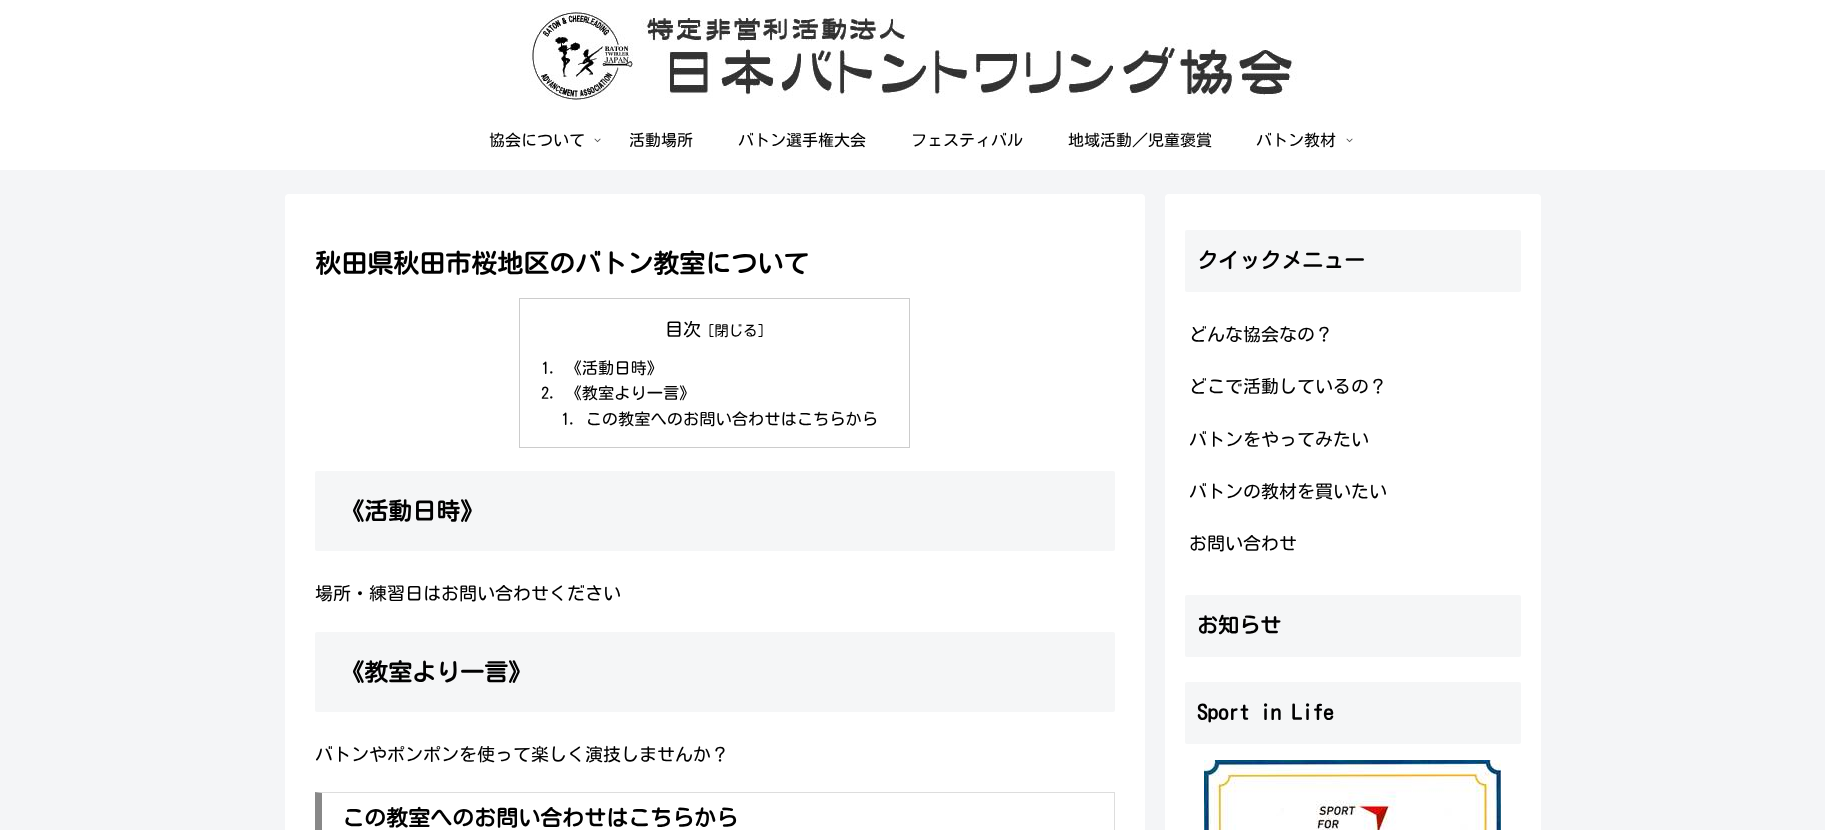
async function draw(canvas) {
	canvas.width = 1825;
	canvas.height = 830;
	const c = canvas.getContext('2d');
	c.miterLimit = 4;
	c.fontKerning = 'normal';
	async function loadImage(src) {
		const img = new Image();
		img.src = src;
		await img.decode();
		return img;
	}

	c.fillStyle = '#f4f5f7';
	c.fillRect(0, 0, 1825, 830);
	c.fillStyle = '#fff';
	c.fillRect(0, 0, 1825, 170);
	c.drawImage(await loadImage('img1.png'), 529, 10, 768, 90);
	c.font = '16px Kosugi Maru';
	c.fillStyle = '#000';
	c.fillText('協会について', 489, 146);
	c.drawImage(await loadImage('img2.png'), 594, 138, 7, 5);
	for (const [text, x, y] of [
		['活動場所', 629, 146],
		['バトン選手権大会', 738, 146],
		['フェスティバル', 911, 146],
		['地域活動／児童褒賞', 1068, 146],
		['バトン教材', 1256, 146],
	]) {
		c.fillText(text, x, y);
	}
	c.drawImage(await loadImage('img2.png'), 1346, 138, 7, 5);
	c.fillStyle = '#fff';
	c.beginPath();
	c.roundRect(285, 194, 860, 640, 4);
	c.fill();
	c.font = 'bold 26px Kosugi Maru';
	c.fillStyle = '#000';
	c.fillText('秋田県秋田市桜地区のバトン教室について', 315, 273);
	c.strokeStyle = '#ccc';
	c.strokeRect(519.5, 298.5, 390, 149);
	c.font = '18px Kosugi Maru';
	c.fillText('目次', 665, 336);
	c.font = '14.5px Kosugi Maru';
	c.fillText('[閉じる]', 707, 336);
	c.font = '16.25px Kosugi Maru';
	for (const [text, x, y] of [
		['1. 《活動日時》', 541, 374],
		['2. 《教室より一言》', 541, 399],
		['1. この教室へのお問い合わせはこちらから', 561, 425],
	]) {
		c.fillText(text, x, y);
	}
	c.fillStyle = '#f5f6f7';
	c.beginPath();
	c.roundRect(315, 471, 800, 80, 2);
	c.fill();
	c.font = 'bold 24px Kosugi Maru';
	c.fillStyle = '#000';
	c.fillText('《活動日時》', 340, 520);
	c.font = '18px Kosugi Maru';
	c.fillText('場所・練習日はお問い合わせください', 315, 600);
	c.fillStyle = '#f5f6f7';
	c.beginPath();
	c.roundRect(315, 632, 800, 80, 2);
	c.fill();
	c.font = 'bold 24px Kosugi Maru';
	c.fillStyle = '#000';
	c.fillText('《教室より一言》', 340, 681);
	c.font = '18px Kosugi Maru';
	c.fillText('バトンやポンポンを使って楽しく演技しませんか？', 315, 761);
	c.fillStyle = '#ddd';
	c.beginPath();
	c.moveTo(315, 792);
	c.lineTo(1115, 792);
	c.lineTo(1114, 793);
	c.lineTo(322, 793);
	c.closePath();
	c.fill();
	c.fillRect(1114, 792, 1, 38);
	c.fillStyle = '#888';
	c.beginPath();
	c.moveTo(315, 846);
	c.lineTo(315, 792);
	c.lineTo(322, 793);
	c.lineTo(322, 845);
	c.closePath();
	c.fill();
	c.font = 'bold 22px Kosugi Maru';
	c.fillStyle = '#000';
	c.fillText('この教室へのお問い合わせはこちらから', 342, 826);
	c.fillStyle = '#fff';
	c.beginPath();
	c.roundRect(1165, 194, 376, 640, 4);
	c.fill();
	c.fillStyle = '#f5f6f7';
	c.beginPath();
	c.roundRect(1185, 230, 336, 62, 2);
	c.fill();
	c.font = 'bold 21px Kosugi Maru';
	c.fillStyle = '#000';
	c.fillText('クイックメニュー', 1197, 268);
	c.font = '18px Kosugi Maru';
	for (const [text, x, y] of [
		['どんな協会なの？', 1189, 341],
		['どこで活動しているの？', 1189, 393],
		['バトンをやってみたい', 1189, 446],
		['バトンの教材を買いたい', 1189, 498],
		['お問い合わせ', 1189, 550],
	]) {
		c.fillText(text, x, y);
	}
	c.fillStyle = '#f5f6f7';
	c.beginPath();
	c.roundRect(1185, 595, 336, 62, 2);
	c.fill();
	c.font = 'bold 21px Kosugi Maru';
	c.fillStyle = '#000';
	c.fillText('お知らせ', 1197, 633);
	c.fillStyle = '#f5f6f7';
	c.beginPath();
	c.roundRect(1185, 682, 336, 62, 2);
	c.fill();
	c.fillStyle = '#000';
	c.fillText('Sport in Life', 1197, 720);
	c.drawImage(await loadImage('img3.png'), 1204, 760, 297, 70);
}

draw(document.querySelector('canvas'));
